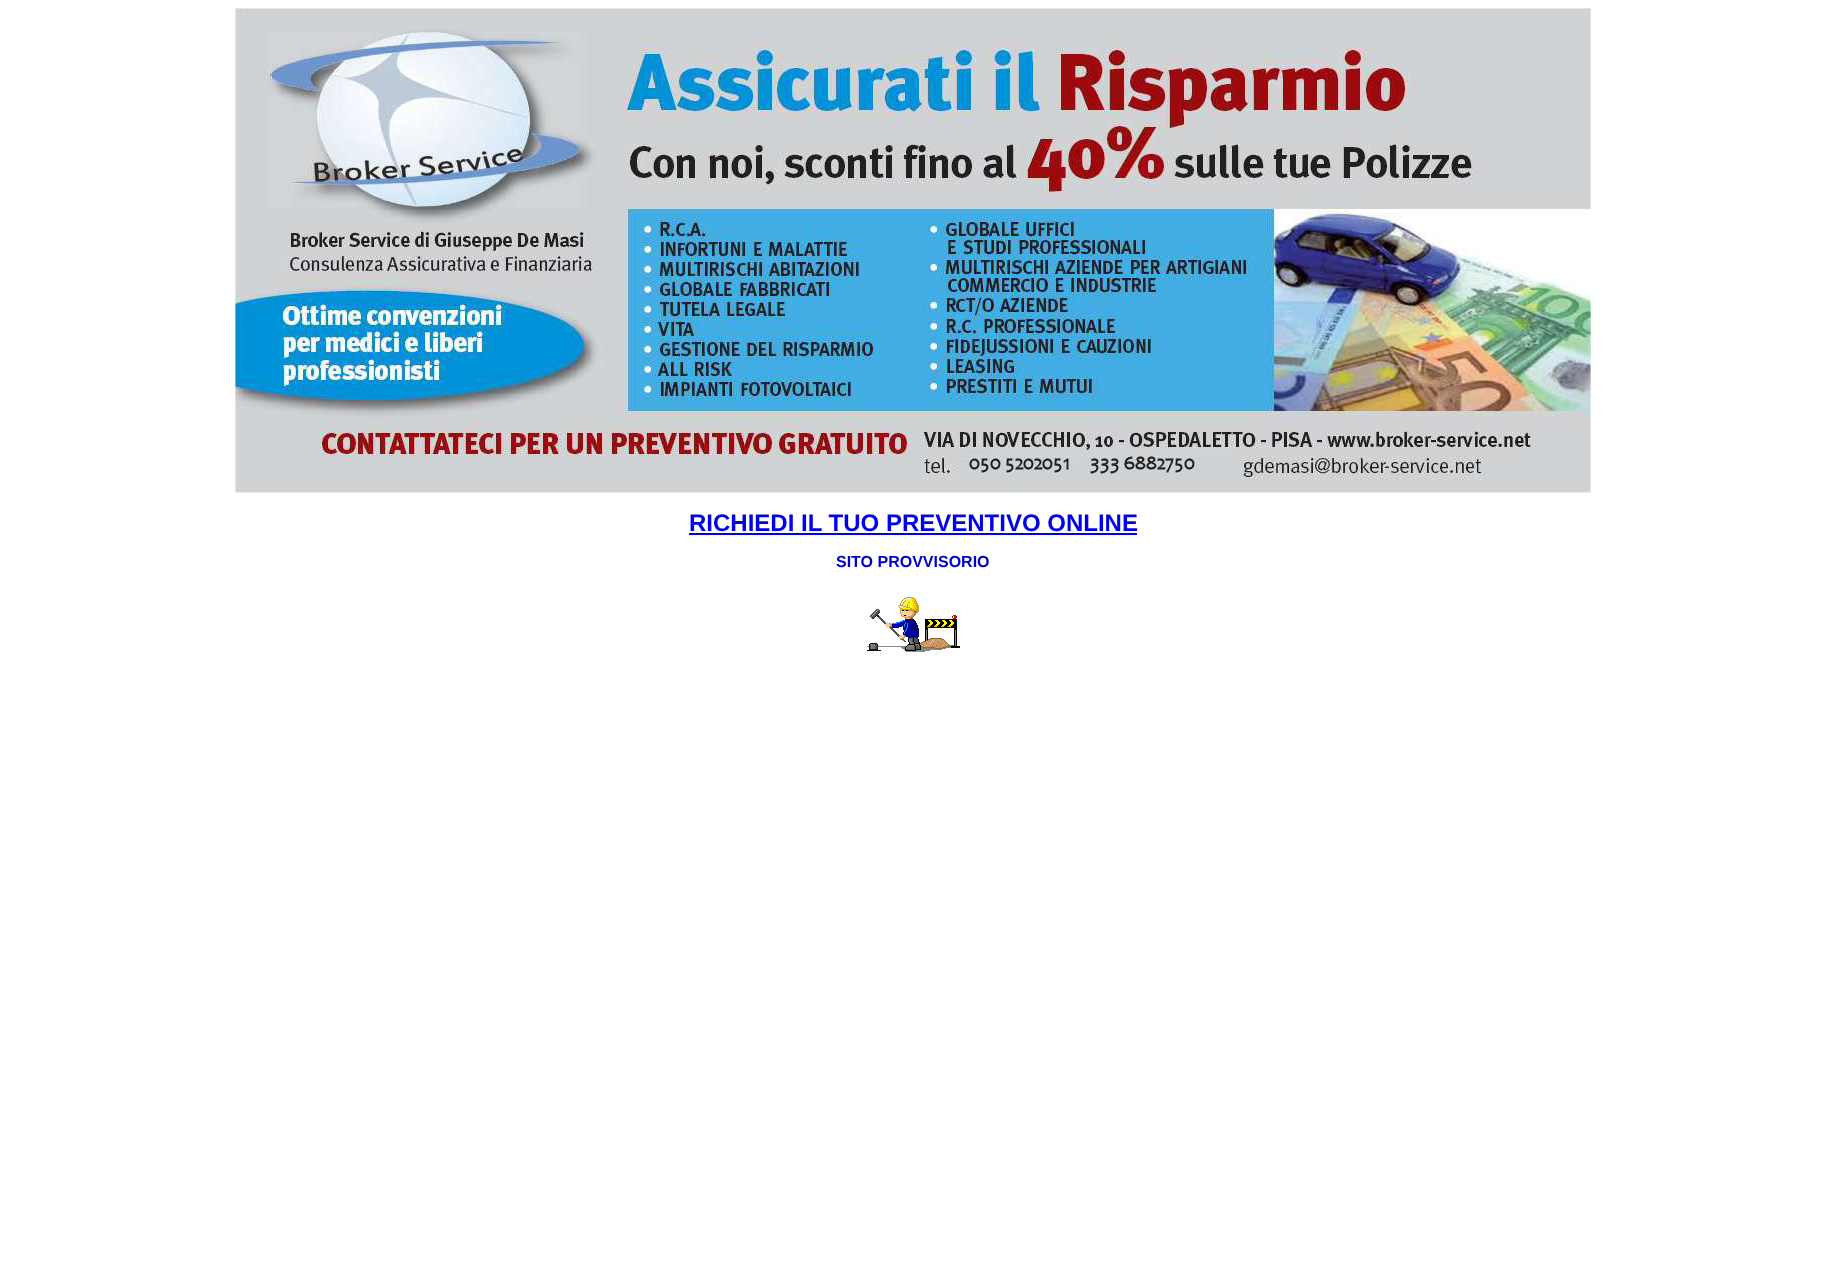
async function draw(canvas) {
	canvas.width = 1826;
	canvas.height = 1285;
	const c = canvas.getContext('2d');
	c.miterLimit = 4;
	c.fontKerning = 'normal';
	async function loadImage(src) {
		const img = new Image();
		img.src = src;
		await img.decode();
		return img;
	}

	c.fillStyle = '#fff';
	c.fillRect(0, 0, 1826, 1285);
	c.drawImage(await loadImage('img1.png'), 235, 8, 1356, 485);
	c.font = 'bold 24px Liberation Sans';
	c.fillStyle = '#00e';
	c.fillText('RICHIEDI IL TUO PREVENTIVO ONLINE', 689, 531);
	c.fillRect(689, 533, 448, 2);
	c.font = 'bold 16px Liberation Sans';
	c.fillStyle = '#00c';
	c.fillText('SITO PROVVISORIO', 836, 567);
	c.drawImage(await loadImage('img2.png'), 867, 597, 93, 55);
}

draw(document.querySelector('canvas'));
